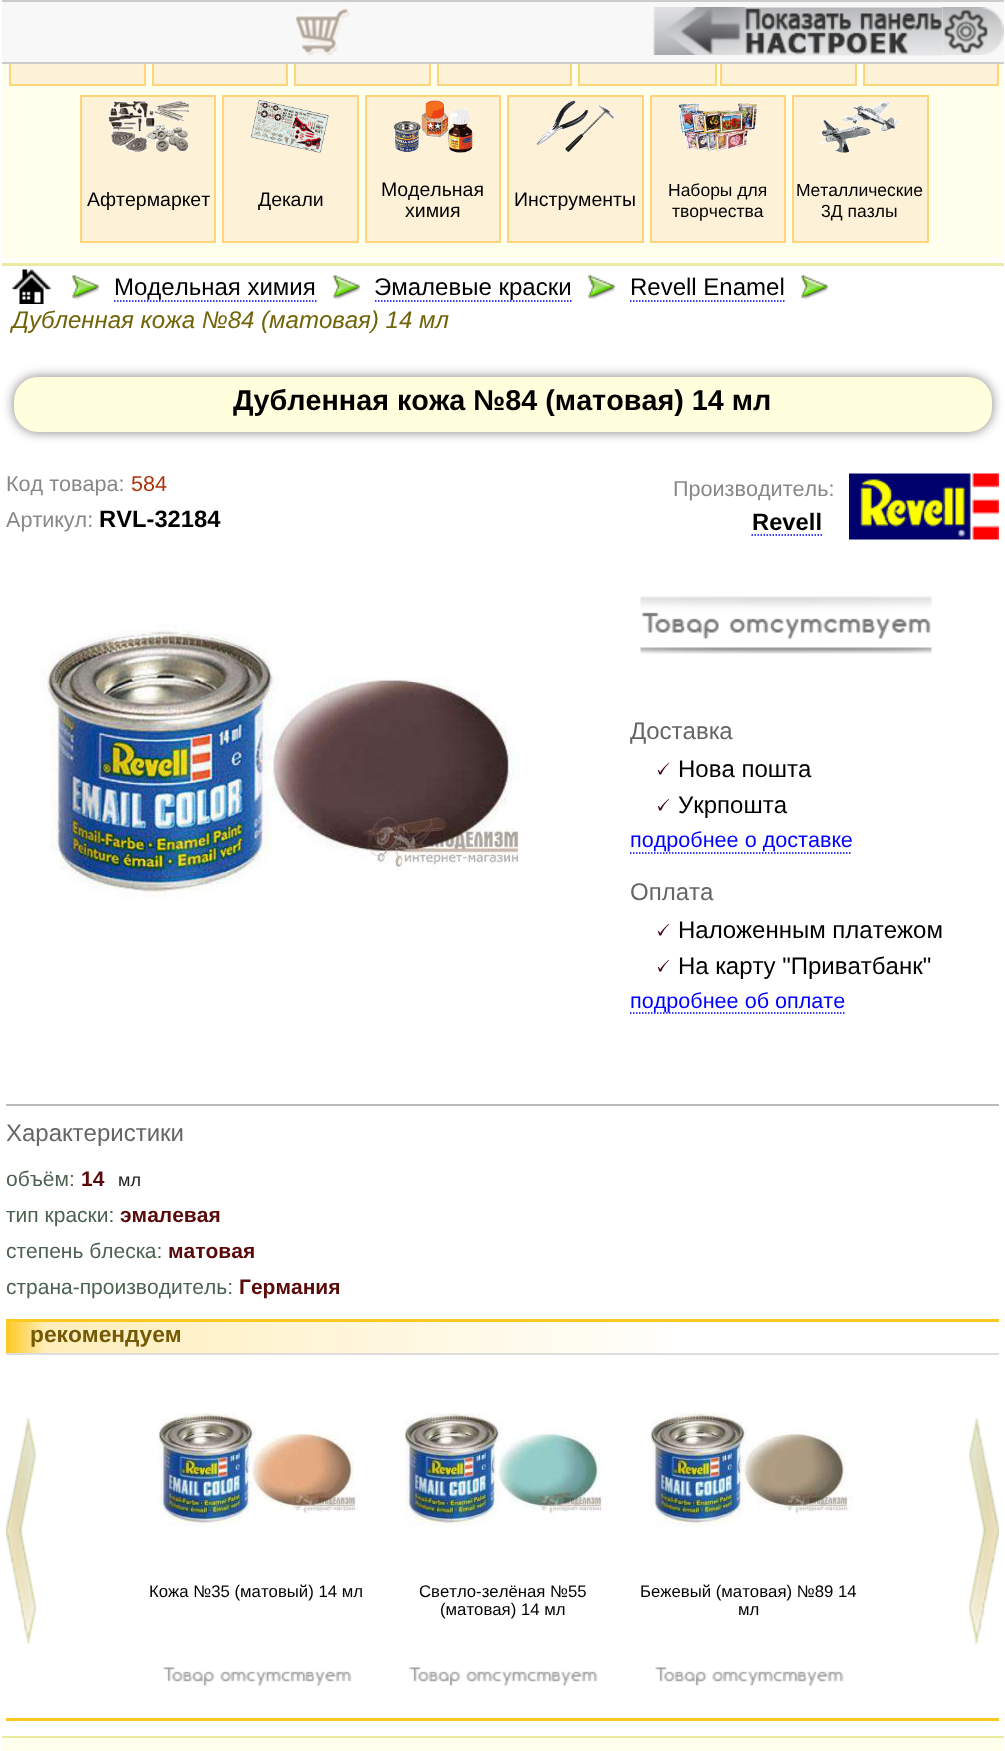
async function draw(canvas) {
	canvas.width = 1005;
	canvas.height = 1751;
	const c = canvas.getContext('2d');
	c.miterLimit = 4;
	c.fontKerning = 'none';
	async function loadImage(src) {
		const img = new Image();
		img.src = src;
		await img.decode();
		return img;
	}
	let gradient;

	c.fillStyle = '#fff';
	c.fillRect(0, 0, 1005, 1751);
	c.fillStyle = '#ffe';
	c.fillRect(2, 64, 1002, 194);
	c.fillStyle = '#fdf1d8';
	c.fillRect(11, 64, 133, 20);
	c.strokeStyle = '#ffd57b';
	c.lineWidth = 2;
	c.strokeRect(10, -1, 135, 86);
	c.fillRect(154, 64, 132, 20);
	c.strokeRect(153, -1, 134, 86);
	c.fillRect(296, 64, 133, 20);
	c.strokeRect(295, -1, 135, 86);
	c.fillRect(439, 64, 131, 20);
	c.strokeRect(438, -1, 133, 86);
	c.fillRect(580, 64, 135, 20);
	c.strokeRect(579, -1, 137, 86);
	c.fillRect(722, 64, 133, 20);
	c.strokeRect(721, -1, 135, 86);
	c.fillRect(865, 64, 132, 20);
	c.strokeRect(864, -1, 134, 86);
	for (const [x, y, w, h, color] of [
		[2, 2, 1002, 60, '#f8f8f8'],
		[2, 0, 1002, 2, '#ccc'],
		[2, 62, 1002, 2, '#ccc'],
	]) {
		c.fillStyle = color;
		c.fillRect(x, y, w, h);
	}
	c.drawImage(await loadImage('img1.png'), 296, 7, 54, 48);
	c.drawImage(await loadImage('img2.png'), 653, 7, 93, 48);
	c.drawImage(await loadImage('img3.png'), 745, 7, 197, 49);
	c.drawImage(await loadImage('img4.png'), 941, 7, 63, 48);
	c.fillStyle = '#fdf1d8';
	c.beginPath();
	c.rect(81, 96, 134, 146);
	c.fill();
	c.stroke();
	c.drawImage(await loadImage('img5.png'), 108, 100, 81, 53);
	c.font = '19.5px Liberation Sans';
	c.fillStyle = '#000';
	c.fillText('Афтермаркет', 87, 206);
	c.fillStyle = '#fdf1d8';
	c.beginPath();
	c.rect(223, 96, 135, 146);
	c.fill();
	c.stroke();
	c.drawImage(await loadImage('img6.png'), 250, 100, 79, 53);
	c.fillStyle = '#000';
	c.fillText('Декали', 258, 206);
	c.fillStyle = '#fdf1d8';
	c.beginPath();
	c.rect(366, 96, 134, 146);
	c.fill();
	c.stroke();
	c.drawImage(await loadImage('img7.png'), 393, 100, 80, 53);
	c.fillStyle = '#000';
	c.fillText('Модельная', 381, 196);
	c.fillText('химия', 405, 217);
	c.fillStyle = '#fdf1d8';
	c.beginPath();
	c.rect(508, 96, 135, 146);
	c.fill();
	c.stroke();
	c.drawImage(await loadImage('img8.png'), 536, 100, 79, 53);
	c.fillStyle = '#000';
	c.fillText('Инструменты', 514, 206);
	c.fillStyle = '#fdf1d8';
	c.beginPath();
	c.rect(651, 96, 134, 146);
	c.fill();
	c.stroke();
	c.drawImage(await loadImage('img9.png'), 678, 102, 80, 49);
	c.font = '17.5px Liberation Sans';
	c.fillStyle = '#000';
	c.fillText('Наборы для', 668, 196);
	c.fillText('творчества', 672, 217);
	c.fillStyle = '#fdf1d8';
	c.beginPath();
	c.rect(793, 96, 135, 146);
	c.fill();
	c.stroke();
	c.drawImage(await loadImage('img10.png'), 819, 100, 81, 53);
	c.fillStyle = '#000';
	c.fillText('Металлические', 796, 196);
	c.fillText('3Д пазлы', 821, 217);
	c.fillStyle = '#eaeaa0';
	c.fillRect(2, 263, 1002, 3);
	c.drawImage(await loadImage('img11.png'), 12, 269, 39, 35);
	c.drawImage(await loadImage('img12.png'), 72, 275, 27, 25);
	c.font = '24px Liberation Sans';
	c.fillStyle = '#000';
	c.fillText('Модельная химия', 114, 295);
	c.beginPath();
	c.moveTo(114, 301);
	c.lineTo(316.5, 301);
	c.strokeStyle = '#00f';
	c.lineWidth = 1.5;
	c.setLineDash([1.5, 1.5]);
	c.stroke();
	c.drawImage(await loadImage('img13.png'), 333, 275, 27, 25);
	c.fillText('Эмалевые краски', 374, 295);
	c.beginPath();
	c.moveTo(375, 301);
	c.lineTo(571.5, 301);
	c.stroke();
	c.drawImage(await loadImage('img13.png'), 588, 275, 27, 25);
	c.fillText('Revell Enamel', 630, 295);
	c.beginPath();
	c.moveTo(630, 301);
	c.lineTo(784.5, 301);
	c.stroke();
	c.drawImage(await loadImage('img12.png'), 801, 275, 27, 25);
	c.font = 'italic 24px Liberation Sans';
	c.fillStyle = '#716408';
	c.fillText('Дубленная кожа №84 (матовая) 14 мл', 12, 328);
	c.fillStyle = '#00000080';
	c.filter = 'blur(6px)';
	c.beginPath();
	c.roundRect(14, 377, 978, 55, 24);
	c.fill();
	c.filter = 'none';
	c.fillStyle = '#ffd';
	c.beginPath();
	c.roundRect(14, 377, 978, 55, 24);
	c.fill();
	c.font = 'bold 28.75px Liberation Sans';
	c.fillStyle = '#000';
	c.fillText('Дубленная кожа №84 (матовая) 14 мл', 233, 410);
	c.font = '21.6px Liberation Sans';
	c.fillStyle = '#888';
	c.fillText('Код товара:', 6, 491);
	c.fillStyle = '#ad340a';
	c.fillText('584', 131, 491);
	c.fillStyle = '#888';
	c.fillText('Артикул:', 6, 527);
	c.font = 'bold 23.75px Liberation Sans';
	c.fillStyle = '#000';
	c.fillText('RVL-32184', 99, 527);
	c.font = '21.6px Liberation Sans';
	c.fillStyle = '#888';
	c.fillText('Производитель:', 673, 496);
	c.font = 'bold 23.75px Liberation Sans';
	c.fillStyle = '#000';
	c.fillText('Revell', 752, 530);
	c.beginPath();
	c.moveTo(751.5, 535);
	c.lineTo(822, 535);
	c.stroke();
	c.drawImage(await loadImage('img14.png'), 849, 473, 150, 67);
	c.drawImage(await loadImage('img15.png'), 40, 624, 480, 274);
	c.drawImage(await loadImage('img16.png'), 640, 596, 292, 58);
	c.drawImage(await loadImage('img17.png'), 642, 612, 289, 27);
	c.font = '24px Liberation Sans';
	c.fillStyle = '#666';
	c.fillText('Доставка', 630, 739);
	c.font = '24px FreeSerif';
	c.fillStyle = '#430613';
	c.fillText('🗸', 654, 777);
	c.font = '24px Liberation Sans';
	c.fillStyle = '#000';
	c.fillText('Нова пошта', 678, 777);
	c.font = '24px FreeSerif';
	c.fillStyle = '#430613';
	c.fillText('🗸', 654, 813);
	c.font = '24px Liberation Sans';
	c.fillStyle = '#000';
	c.fillText('Укрпошта', 678, 813);
	c.font = '21.6px Liberation Sans';
	c.fillStyle = '#00f';
	c.fillText('подробнее о доставке', 630, 847);
	c.beginPath();
	c.moveTo(630, 853);
	c.lineTo(852, 853);
	c.stroke();
	c.font = '24px Liberation Sans';
	c.fillStyle = '#666';
	c.fillText('Оплата', 630, 900);
	c.font = '24px FreeSerif';
	c.fillStyle = '#430613';
	c.fillText('🗸', 654, 938);
	c.font = '24px Liberation Sans';
	c.fillStyle = '#000';
	c.fillText('Наложенным платежом', 678, 938);
	c.font = '24px FreeSerif';
	c.fillStyle = '#430613';
	c.fillText('🗸', 654, 974);
	c.font = '24px Liberation Sans';
	c.fillStyle = '#000';
	c.fillText('На карту "Приватбанк"', 678, 974);
	c.beginPath();
	c.moveTo(630, 1013);
	c.lineTo(844.5, 1013);
	c.stroke();
	c.font = '21.6px Liberation Sans';
	c.fillStyle = '#00f';
	c.fillText('подробнее об оплате', 630, 1008);
	c.fillStyle = '#bbb';
	c.fillRect(6, 1104, 993, 2);
	c.font = '24px Liberation Sans';
	c.fillStyle = '#666';
	c.fillText('Характеристики', 6, 1141);
	c.font = '21px Liberation Sans';
	c.fillStyle = '#4d6251';
	c.fillText('объём:', 6, 1186);
	c.font = 'bold 21px Liberation Sans';
	c.fillStyle = '#590a0a';
	c.fillText('14', 81, 1186);
	c.font = '18px Liberation Sans';
	c.fillStyle = '#222';
	c.fillText('мл', 118, 1186);
	c.font = '21px Liberation Sans';
	c.fillStyle = '#4d6251';
	c.fillText('тип краски:', 6, 1222);
	c.font = 'bold 21px Liberation Sans';
	c.fillStyle = '#590a0a';
	c.fillText('эмалевая', 120, 1222);
	c.font = '21px Liberation Sans';
	c.fillStyle = '#4d6251';
	c.fillText('степень блеска:', 6, 1258);
	c.font = 'bold 21px Liberation Sans';
	c.fillStyle = '#590a0a';
	c.fillText('матовая', 168, 1258);
	c.font = '21px Liberation Sans';
	c.fillStyle = '#4d6251';
	c.fillText('страна-производитель:', 6, 1294);
	c.font = 'bold 21px Liberation Sans';
	c.fillStyle = '#590a0a';
	c.fillText('Германия', 239, 1294);
	c.fillStyle = '#ffc821';
	c.fillRect(6, 1319, 993, 3);
	c.fillRect(6, 1718, 993, 3);
	gradient = c.createLinearGradient(6, 1337, 999, 1337);
	gradient.addColorStop(0, '#ffc821');
	gradient.addColorStop(0.04, '#feb');
	gradient.addColorStop(0.7, '#fff');
	c.fillStyle = gradient;
	c.fillRect(6, 1322, 671, 31);
	c.fillStyle = '#ddd';
	c.fillRect(6, 1353, 993, 2);
	c.font = 'bold 22.75px Liberation Sans';
	c.fillStyle = '#755904';
	c.fillText('рекомендуем', 30, 1342);
	c.drawImage(await loadImage('img18.png'), 6, 1418, 30, 226);
	c.drawImage(await loadImage('img19.png'), 157, 1412, 204, 114);
	c.font = '16.75px Liberation Sans';
	c.fillStyle = '#000';
	c.fillText('Кожа №35 (матовый) 14 мл', 149, 1597);
	c.drawImage(await loadImage('img20.png'), 163, 1667, 189, 19);
	c.drawImage(await loadImage('img21.png'), 404, 1412, 203, 114);
	c.fillText('Светло-зелёная №55', 419, 1597);
	c.fillText('(матовая) 14 мл', 440, 1615);
	c.drawImage(await loadImage('img22.png'), 409, 1667, 189, 19);
	c.drawImage(await loadImage('img23.png'), 650, 1412, 203, 115);
	c.fillText('Бежевый (матовая) №89 14', 640, 1597);
	c.fillText('мл', 738, 1615);
	c.drawImage(await loadImage('img20.png'), 655, 1667, 189, 19);
	c.drawImage(await loadImage('img24.png'), 969, 1418, 30, 226);
	c.fillStyle = '#ffe';
	c.fillRect(2, 1738, 1002, 13);
	c.fillStyle = '#eaeaa0';
	c.fillRect(2, 1736, 1002, 2);
}

draw(document.querySelector('canvas'));
